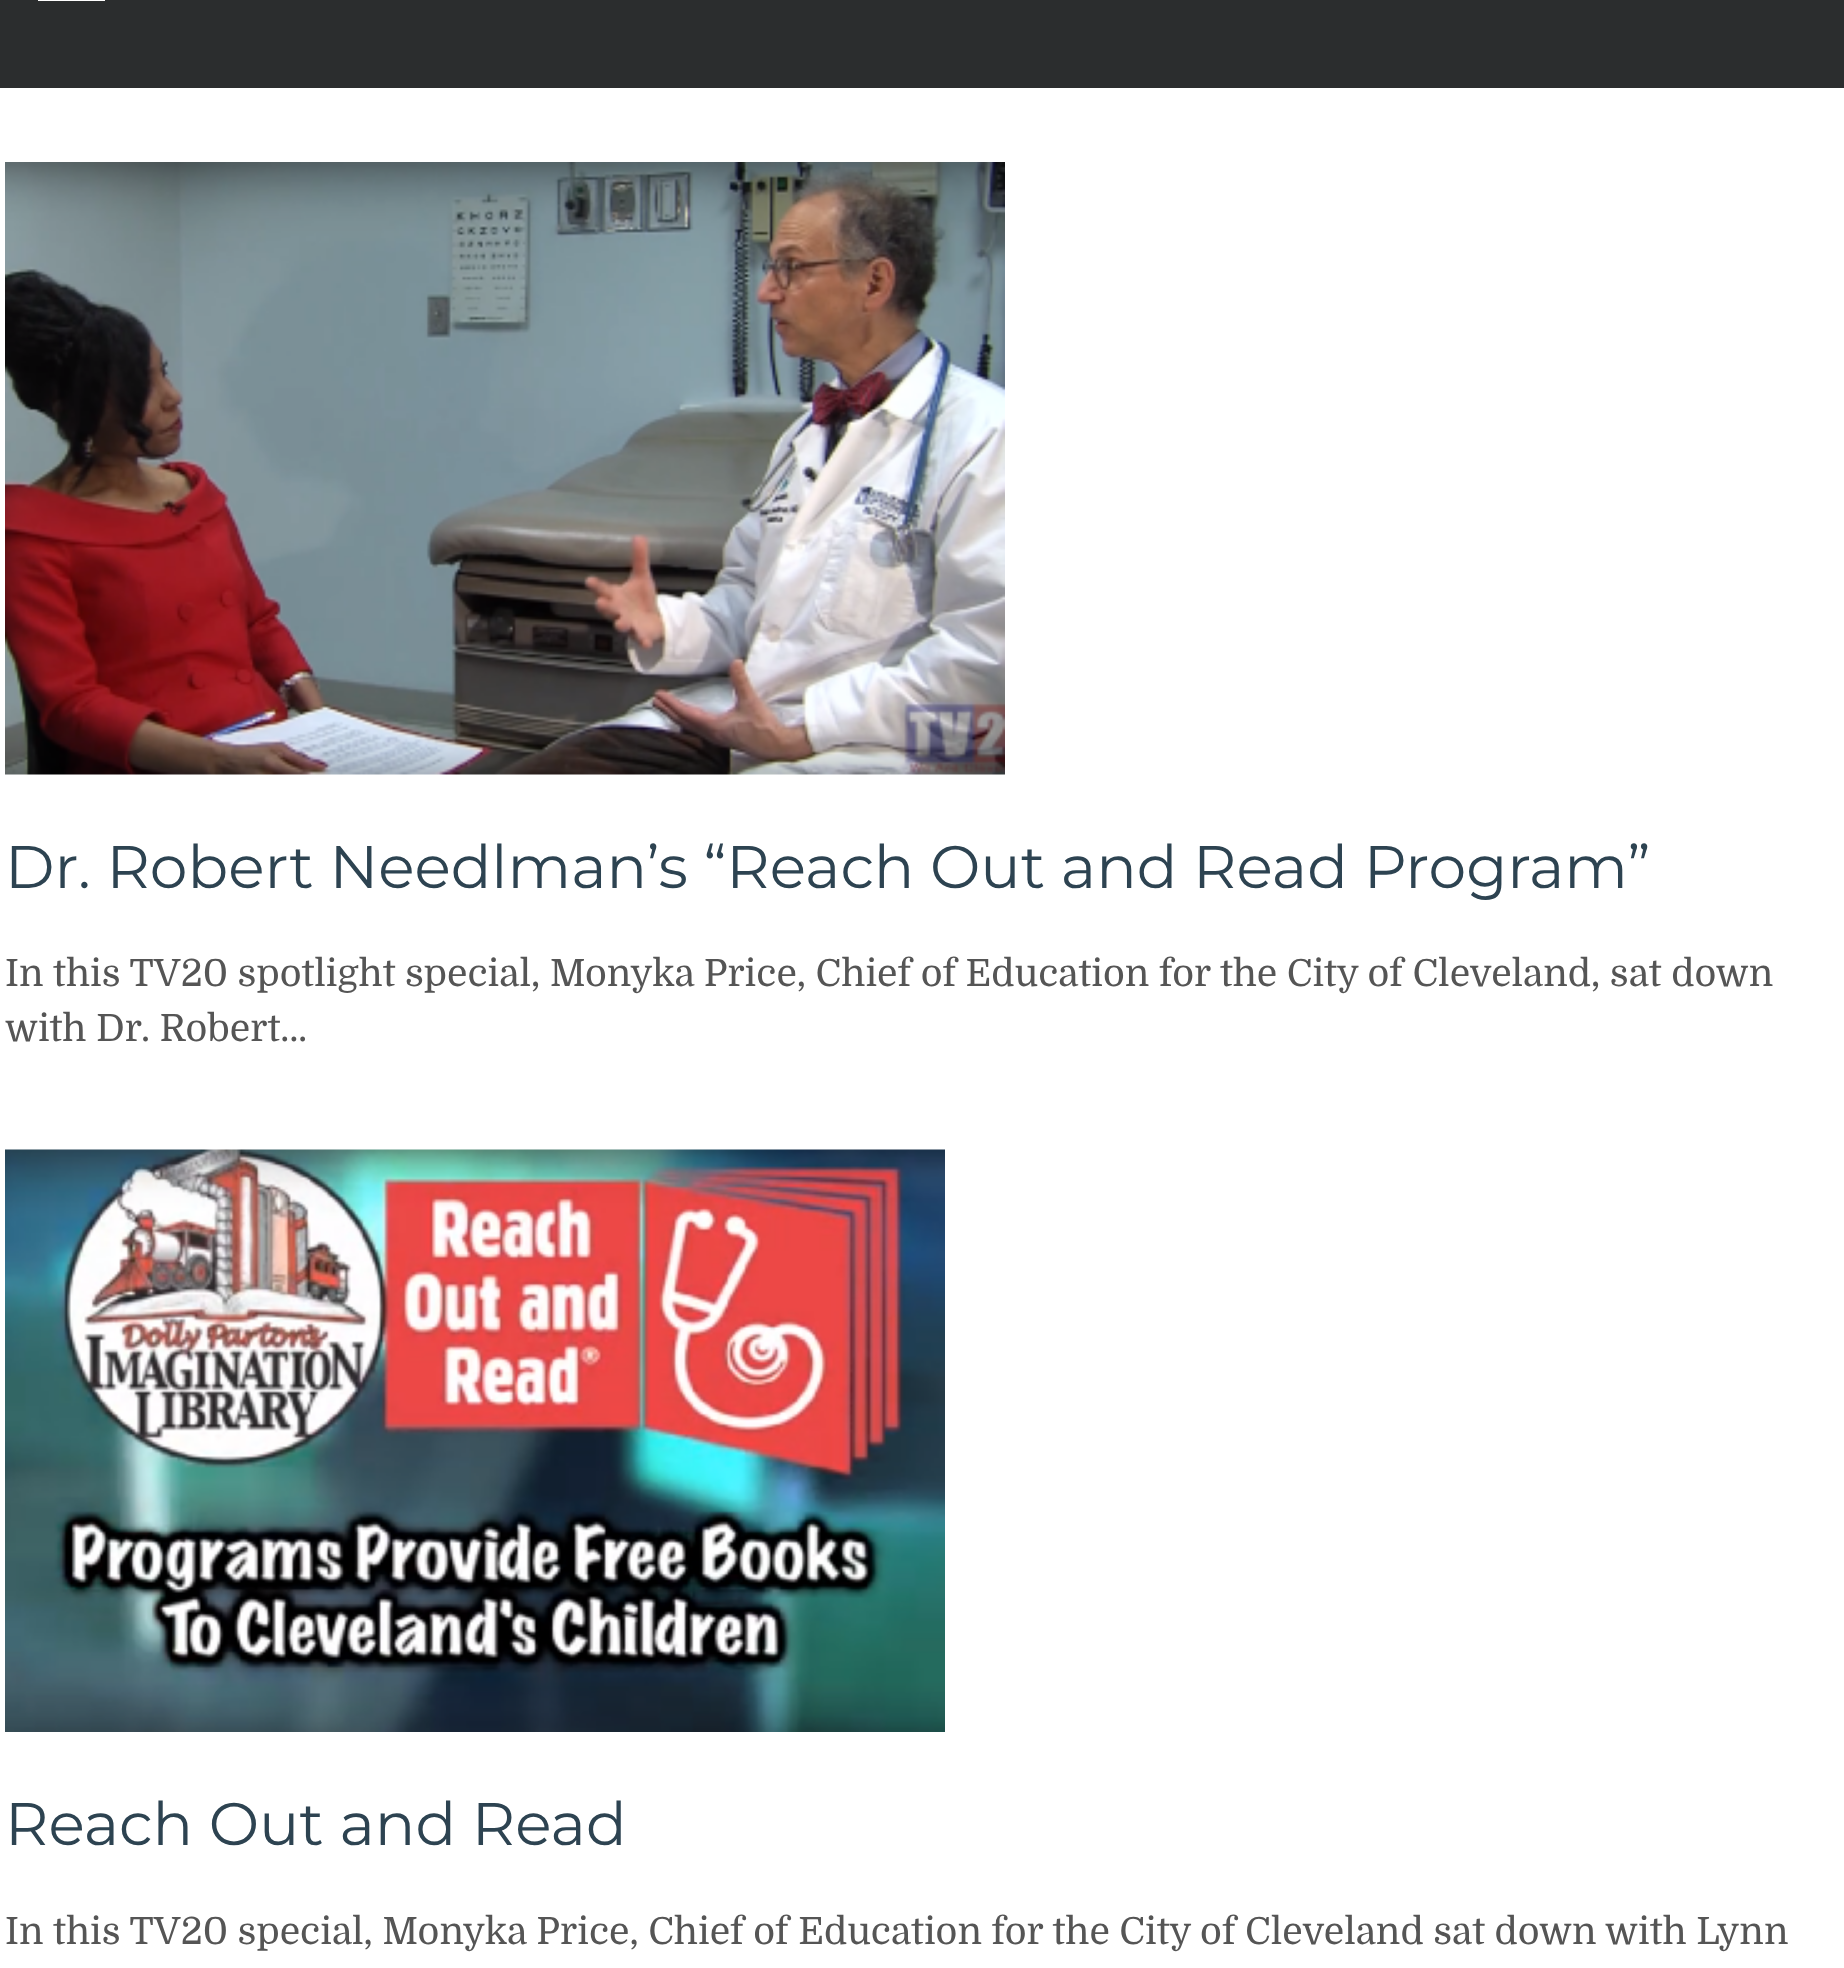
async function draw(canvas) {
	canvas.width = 1844;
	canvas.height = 1968;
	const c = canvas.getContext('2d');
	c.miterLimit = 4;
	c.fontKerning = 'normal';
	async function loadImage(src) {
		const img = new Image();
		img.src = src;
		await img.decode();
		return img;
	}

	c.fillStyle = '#fff';
	c.fillRect(0, 0, 1844, 1968);
	c.fillStyle = '#2b2d2e';
	c.fillRect(0, 0, 1844, 88);
	c.fillStyle = '#fff';
	c.fillRect(38, 0, 67, 1);
	c.drawImage(await loadImage('img1.png'), 5, 162, 1000, 613);
	c.font = '60px Montserrat';
	c.fillStyle = '#2d4351';
	c.fillText('Dr. Robert Needlman’s “Reach Out and Read Program”', 5, 888);
	c.font = '37.5px Domine';
	c.fillStyle = '#555';
	c.fillText('In this TV20 spotlight special, Monyka Price, Chief of Education for the City of Cleveland, sat down', 5, 986);
	c.fillText('with Dr. Robert…', 5, 1041);
	c.drawImage(await loadImage('img2.png'), 5, 1149, 940, 583);
	c.font = '60px Montserrat';
	c.fillStyle = '#2d4351';
	c.fillText('Reach Out and Read', 5, 1845);
	c.font = '37.5px Domine';
	c.fillStyle = '#555';
	c.fillText('In this TV20 special, Monyka Price, Chief of Education for the City of Cleveland sat down with Lynn', 5, 1944);
}

draw(document.querySelector('canvas'));
